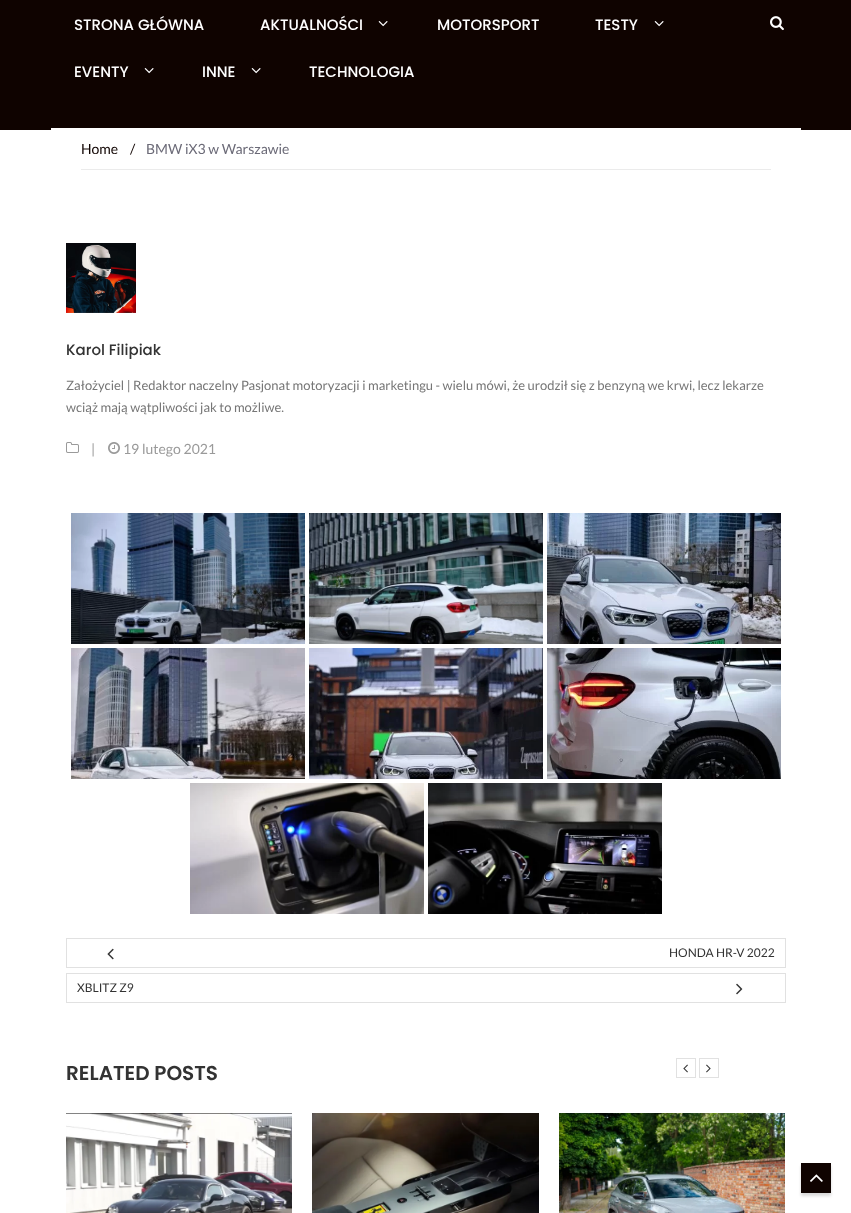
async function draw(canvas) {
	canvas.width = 851;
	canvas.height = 1213;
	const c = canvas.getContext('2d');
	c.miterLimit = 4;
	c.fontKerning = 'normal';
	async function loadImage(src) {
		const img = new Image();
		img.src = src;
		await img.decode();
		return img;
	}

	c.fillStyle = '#fff';
	c.fillRect(0, 0, 851, 1213);
	c.fillStyle = '#0f0300';
	c.fillRect(0, 0, 851, 130);
	c.font = '500 15px Poppins';
	c.fillStyle = '#fff';
	c.fillText('STRONA GŁÓWNA', 74, 30);
	c.fillText('AKTUALNOŚCI', 260, 30);
	c.drawImage(await loadImage('img1.png'), 378, 21, 10, 6);
	c.fillText('MOTORSPORT', 437, 30);
	c.fillText('TESTY', 595, 30);
	c.drawImage(await loadImage('img1.png'), 654, 21, 10, 6);
	c.fillText('EVENTY', 74, 77);
	c.drawImage(await loadImage('img1.png'), 144, 68, 10, 6);
	c.fillText('INNE', 202, 77);
	c.drawImage(await loadImage('img1.png'), 251, 68, 10, 6);
	c.fillText('TECHNOLOGIA', 309, 77);
	c.drawImage(await loadImage('img2.png'), 770, 16, 14, 15);
	c.fillRect(51, 128, 750, 2);
	c.fillStyle = '#ebebeb';
	c.fillRect(81, 169, 690, 1);
	c.font = '14px Lato';
	c.fillStyle = '#0f0300';
	c.fillText('Home', 81, 154);
	c.fillText('/', 130, 154);
	c.fillStyle = '#6b6a77';
	c.fillText('BMW iX3 w Warszawie', 146, 154);
	c.drawImage(await loadImage('img3.png'), 66, 243, 70, 70);
	c.font = '500 15px Poppins';
	c.fillStyle = '#333';
	c.fillText('Karol Filipiak', 66, 355);
	c.font = '13px Lato';
	c.fillStyle = '#767676';
	c.fillText('Założyciel | Redaktor naczelny Pasjonat motoryzacji i marketingu - wielu mówi, że urodził się z benzyną we krwi, lecz lekarze', 66, 390);
	c.fillText('wciąż mają wątpliwości jak to możliwe.', 66, 412);
	c.drawImage(await loadImage('img4.png'), 66, 442, 13, 11);
	c.font = '14px Lato';
	c.fillStyle = '#9a9a9a';
	c.fillText('|', 91, 454);
	c.drawImage(await loadImage('img5.png'), 108, 442, 12, 12);
	c.fillText('19 lutego 2021', 123, 454);
	c.drawImage(await loadImage('img6.png'), 71, 513, 234, 131);
	c.drawImage(await loadImage('img7.png'), 309, 513, 234, 131);
	c.drawImage(await loadImage('img8.png'), 547, 513, 234, 131);
	c.drawImage(await loadImage('img9.png'), 71, 648, 234, 131);
	c.drawImage(await loadImage('img10.png'), 309, 648, 234, 131);
	c.drawImage(await loadImage('img11.png'), 547, 648, 234, 131);
	c.drawImage(await loadImage('img12.png'), 190, 783, 234, 131);
	c.drawImage(await loadImage('img13.png'), 428, 783, 234, 131);
	c.strokeStyle = '#e1e1e1';
	c.strokeRect(66.5, 938.5, 719, 29);
	c.drawImage(await loadImage('img14.png'), 107, 948, 7, 12);
	c.font = '12px Lato';
	c.fillStyle = '#333';
	c.fillText('HONDA HR-V 2022', 669, 957);
	c.strokeRect(66.5, 973.5, 719, 29);
	c.fillText('XBLITZ Z9', 77, 992);
	c.drawImage(await loadImage('img15.png'), 736, 983, 7, 12);
	c.font = '600 20px Poppins';
	c.fillText('RELATED POSTS', 66, 1080);
	c.strokeRect(676.5, 1058.5, 19, 19);
	c.drawImage(await loadImage('img16.png'), 683, 1064, 5, 9);
	c.strokeRect(699.5, 1058.5, 19, 19);
	c.drawImage(await loadImage('img17.png'), 706, 1064, 5, 9);
	c.drawImage(await loadImage('img18.png'), 66, 1113, 226, 100);
	c.drawImage(await loadImage('img19.png'), 312, 1113, 227, 100);
	c.drawImage(await loadImage('img20.png'), 559, 1113, 226, 100);
	c.fillStyle = '#00000026';
	c.filter = 'blur(1.5px)';
	c.beginPath();
	c.rect(801, 1166, 30, 30);
	c.fill();
	c.filter = 'none';
	c.fillStyle = '#0f0300';
	c.fillRect(801, 1163, 30, 30);
	c.drawImage(await loadImage('img21.png'), 810, 1174, 13, 8);
}

draw(document.querySelector('canvas'));
